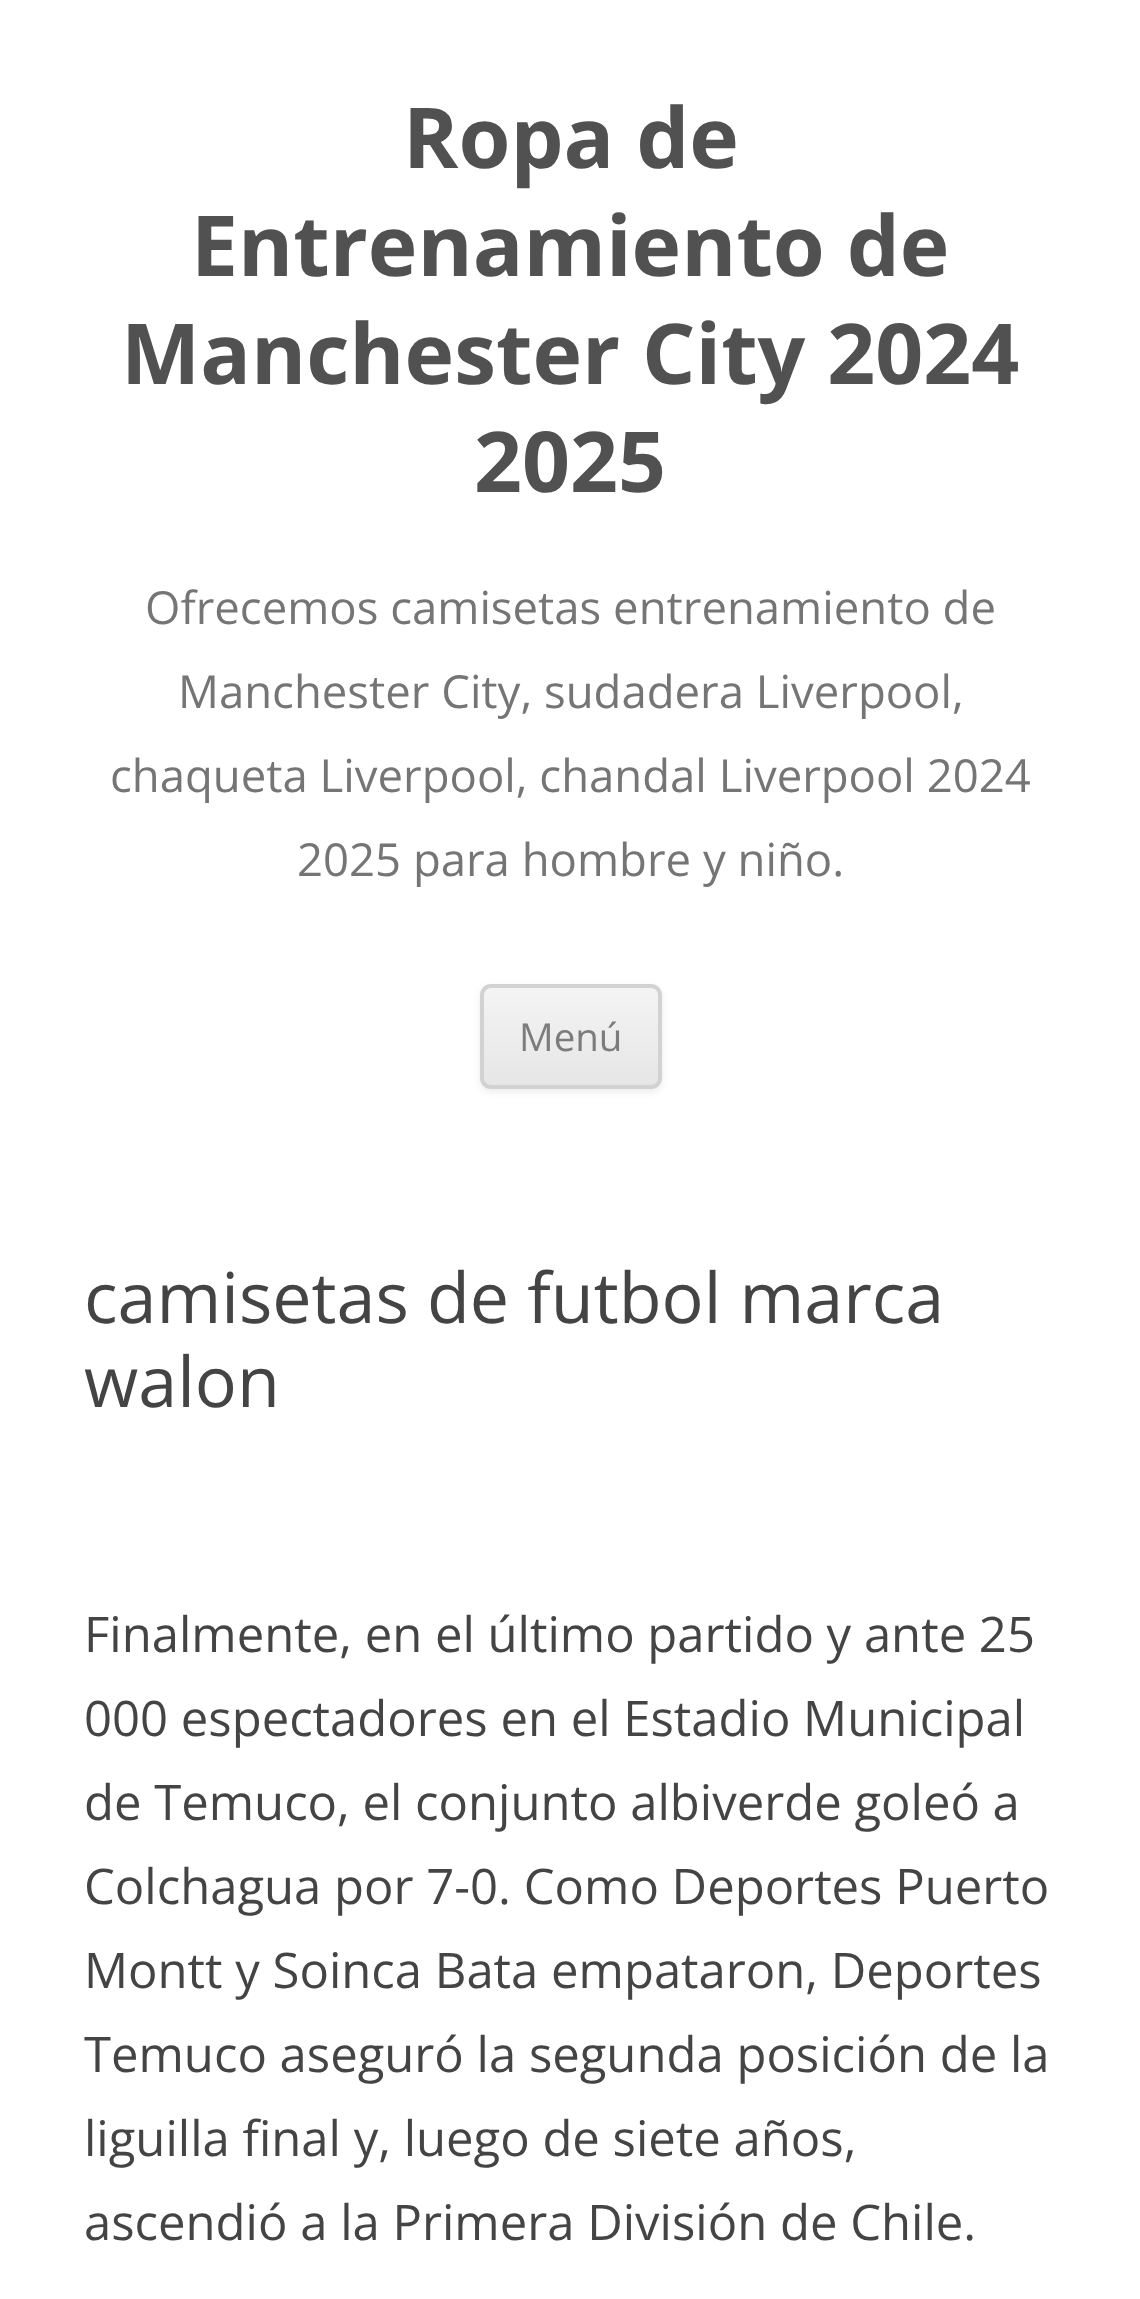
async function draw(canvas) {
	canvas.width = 1140;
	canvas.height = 2299;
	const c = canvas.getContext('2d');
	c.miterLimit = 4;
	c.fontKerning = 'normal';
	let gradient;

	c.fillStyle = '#fff';
	c.fillRect(0, 0, 1140, 2299);
	c.font = 'bold 84px Open Sans';
	c.fillStyle = '#515151';
	for (const [text, x, y] of [
		['Ropa de', 403, 168],
		['Entrenamiento de', 191, 276],
		['Manchester City 2024', 121, 384],
		['2025', 474, 492],
	]) {
		c.fillText(text, x, y);
	}
	c.font = '45.5px Open Sans';
	c.fillStyle = '#757575';
	for (const [text, x, y] of [
		['Ofrecemos camisetas entrenamiento de', 145, 624],
		['Manchester City, sudadera Liverpool,', 178, 708],
		['chaqueta Liverpool, chandal Liverpool 2024', 110, 792],
		['2025 para hombre y niño.', 297, 876],
	]) {
		c.fillText(text, x, y);
	}
	c.fillStyle = '#4040401a';
	c.filter = 'blur(3.5px)';
	c.beginPath();
	c.roundRect(480, 987, 182, 105, 11);
	c.fill();
	c.filter = 'none';
	c.save();
	c.beginPath();
	c.roundRect(480, 984, 182, 105, 11);
	c.clip();
	gradient = c.createLinearGradient(571, 987, 571, 1085);
	gradient.addColorStop(0, '#f4f4f4');
	gradient.addColorStop(1, '#e6e6e6');
	c.fillStyle = gradient;
	c.fillRect(480, 987, 182, 98);
	c.restore();
	c.beginPath();
	c.roundRect(482, 986, 178, 101, 9);
	c.strokeStyle = '#d2d2d2';
	c.lineWidth = 4;
	c.stroke();
	c.font = '38.5px Open Sans';
	c.fillStyle = '#7c7c7c';
	c.fillText('Menú', 519, 1051);
	c.font = '70px Open Sans';
	c.fillStyle = '#444';
	c.fillText('camisetas de futbol marca', 84, 1323);
	c.fillText('walon', 84, 1407);
	c.font = '49px Open Sans';
	for (const [text, x, y] of [
		['Finalmente, en el último partido y ante 25', 84, 1652],
		['000 espectadores en el Estadio Municipal', 84, 1736],
		['de Temuco, el conjunto albiverde goleó a', 84, 1820],
		['Colchagua por 7-0. Como Deportes Puerto', 84, 1904],
		['Montt y Soinca Bata empataron, Deportes', 84, 1988],
		['Temuco aseguró la segunda posición de la', 84, 2072],
		['liguilla final y, luego de siete años,', 84, 2156],
		['ascendió a la Primera División de Chile.', 84, 2240],
	]) {
		c.fillText(text, x, y);
	}
}

draw(document.querySelector('canvas'));
